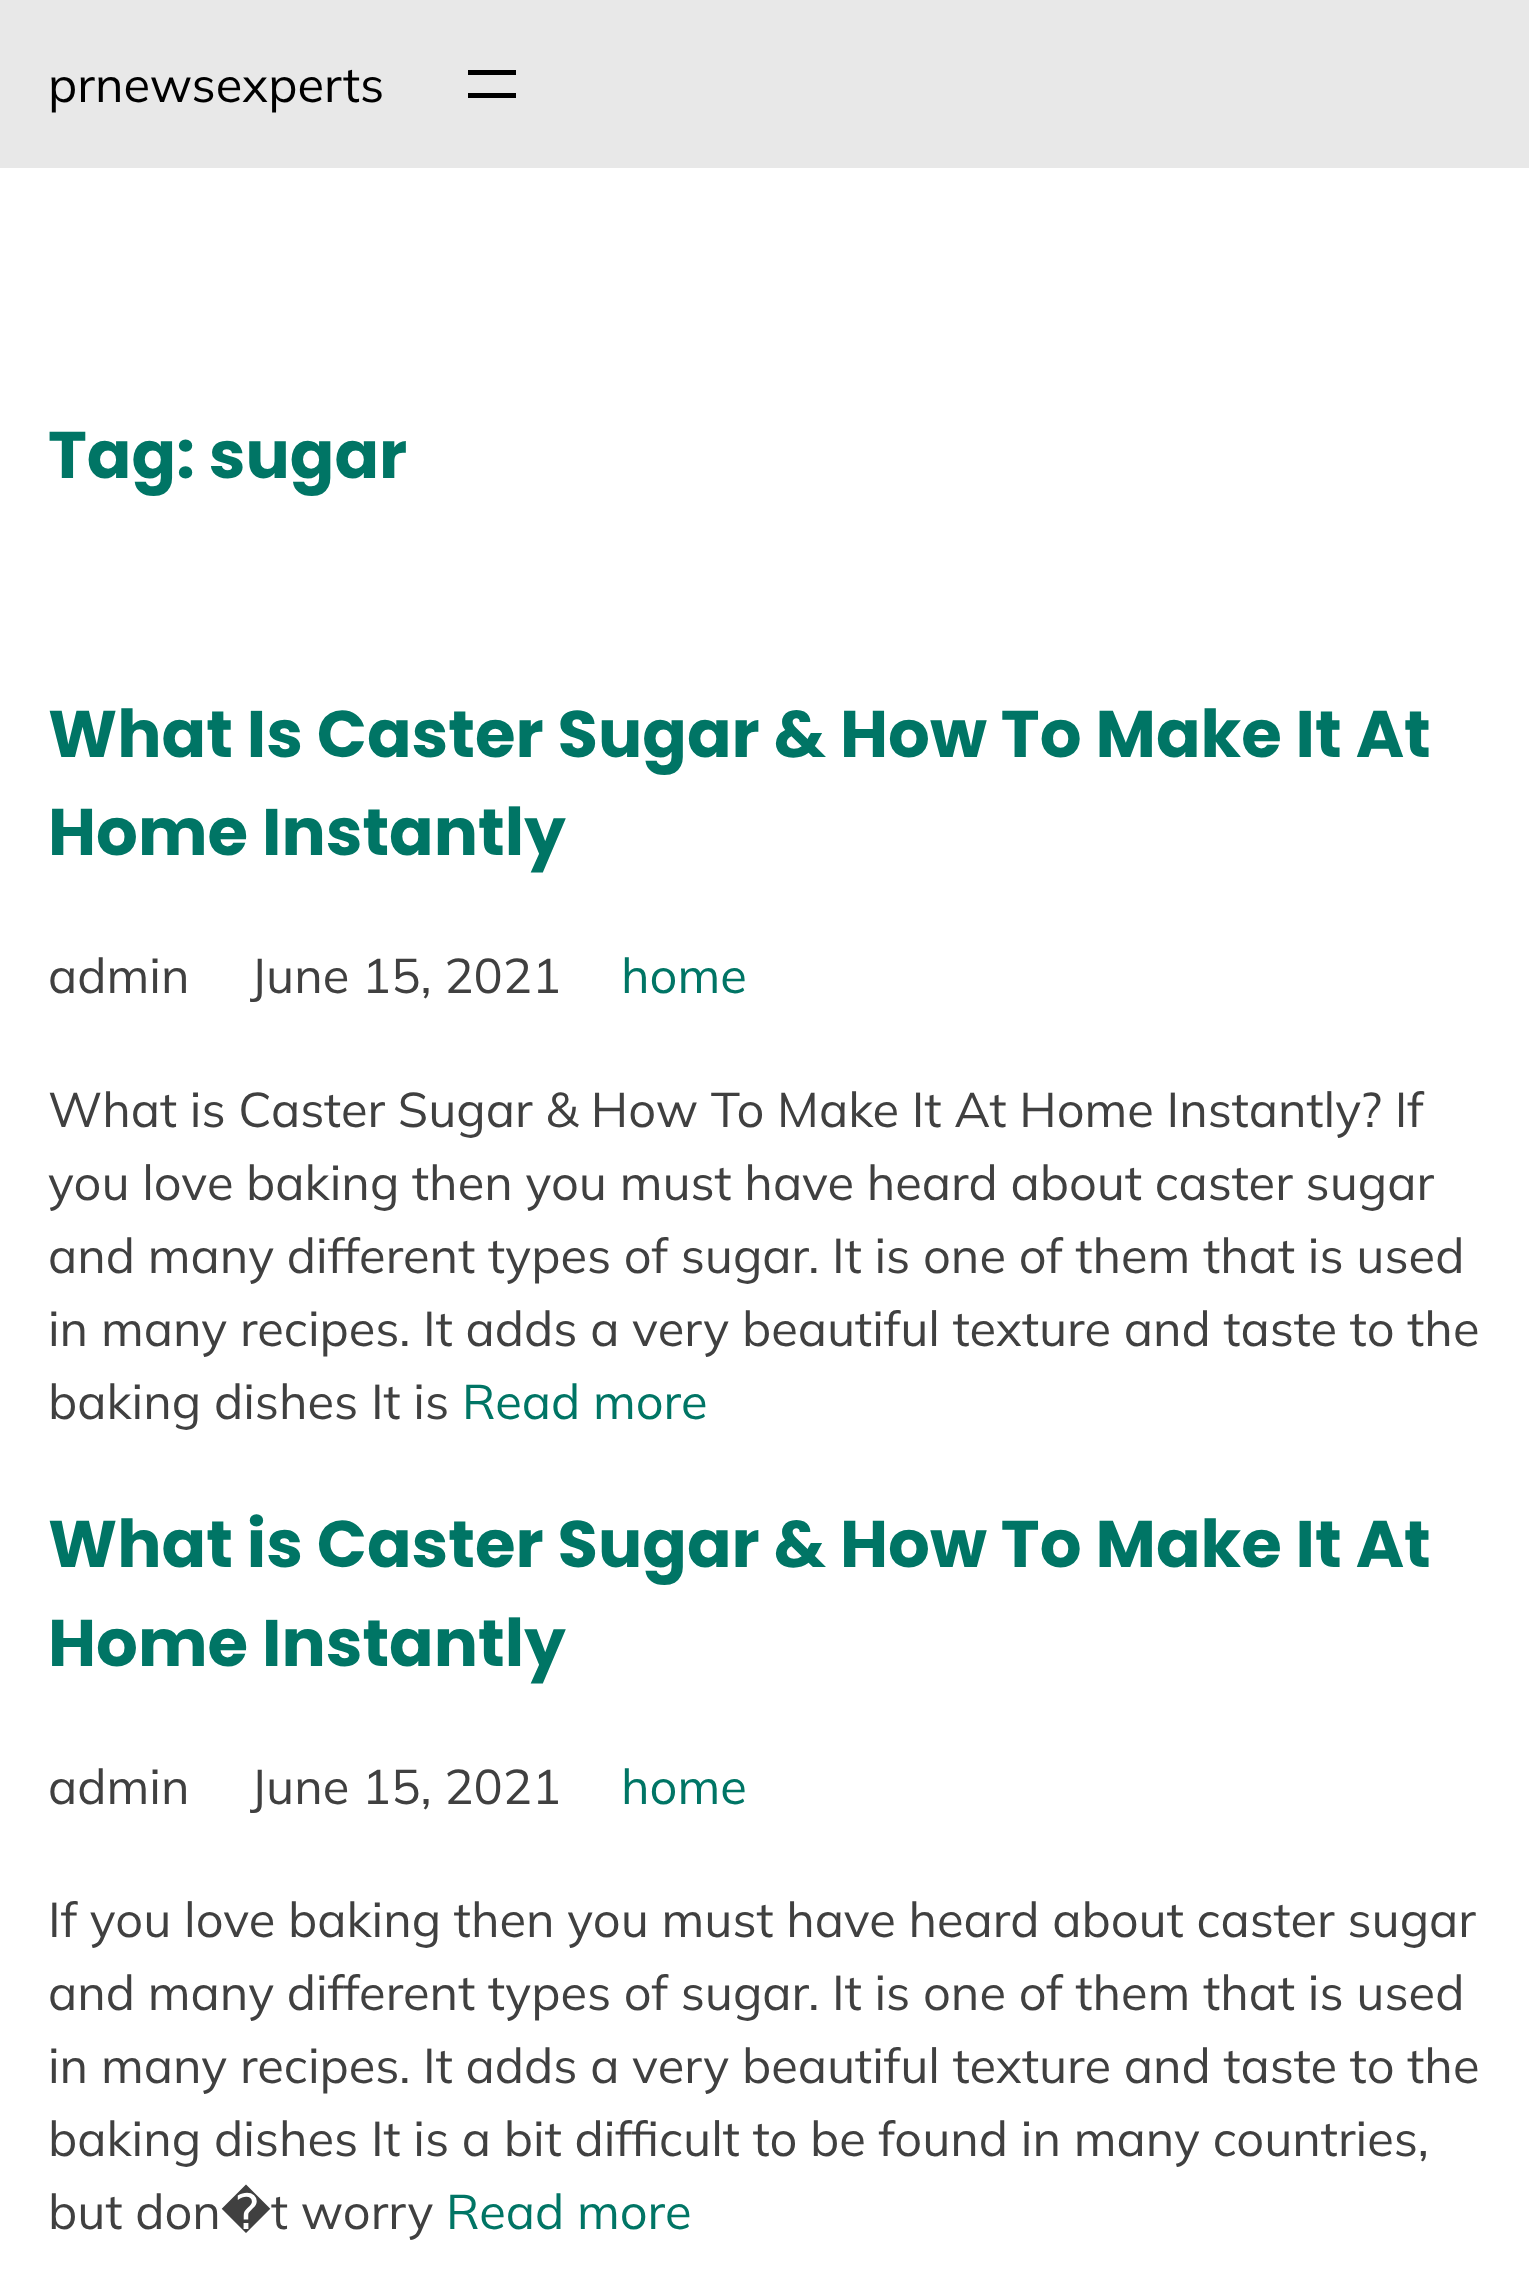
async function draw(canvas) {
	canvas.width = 1529;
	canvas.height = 2279;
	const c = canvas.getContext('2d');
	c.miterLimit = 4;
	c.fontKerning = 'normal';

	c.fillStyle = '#fff';
	c.fillRect(0, 0, 1529, 2279);
	c.fillStyle = '#e8e8e8';
	c.fillRect(0, 0, 1529, 168);
	c.font = '48.75px Mulish';
	c.fillStyle = '#000';
	c.fillText('prnewsexperts', 48, 102);
	c.fillRect(468, 70, 48, 5);
	c.fillRect(468, 93, 48, 5);
	c.font = 'bold 65.75px Poppins';
	c.fillStyle = '#007565';
	for (const [text, x, y] of [
		['Tag: sugar', 48, 478],
		['What Is Caster Sugar & How To Make It At', 48, 757],
		['Home Instantly', 48, 855],
	]) {
		c.fillText(text, x, y);
	}
	c.font = '48.75px Mulish';
	c.fillStyle = '#404040';
	c.fillText('admin', 48, 993);
	c.fillText('June 15, 2021', 250, 993);
	c.fillStyle = '#007565';
	c.fillText('home', 621, 993);
	c.fillStyle = '#404040';
	for (const [text, x, y] of [
		['What is Caster Sugar & How To Make It At Home Instantly? If', 48, 1127],
		['you love baking then you must have heard about caster sugar', 48, 1200],
		['and many different types of sugar. It is one of them that is used', 48, 1273],
		['in many recipes. It adds a very beautiful texture and taste to the', 48, 1346],
		['baking dishes It is', 48, 1419],
	]) {
		c.fillText(text, x, y);
	}
	c.fillStyle = '#007565';
	c.fillText('Read more', 462, 1419);
	c.font = 'bold 65.75px Poppins';
	c.fillText('What is Caster Sugar & How To Make It At', 48, 1567);
	c.fillText('Home Instantly', 48, 1666);
	c.font = '48.75px Mulish';
	c.fillStyle = '#404040';
	c.fillText('admin', 48, 1804);
	c.fillText('June 15, 2021', 250, 1804);
	c.fillStyle = '#007565';
	c.fillText('home', 621, 1804);
	c.fillStyle = '#404040';
	for (const [text, x, y] of [
		['If you love baking then you must have heard about caster sugar', 48, 1937],
		['and many different types of sugar. It is one of them that is used', 48, 2010],
		['in many recipes. It adds a very beautiful texture and taste to the', 48, 2083],
		['baking dishes It is a bit difficult to be found in many countries,', 48, 2156],
		['but don', 48, 2229],
	]) {
		c.fillText(text, x, y);
	}
	c.font = '48.75px DejaVu Sans';
	c.fillText('�', 221, 2229);
	c.font = '48.75px Mulish';
	c.fillText('t worry', 271, 2229);
	c.fillStyle = '#007565';
	c.fillText('Read more', 446, 2229);
}

draw(document.querySelector('canvas'));
